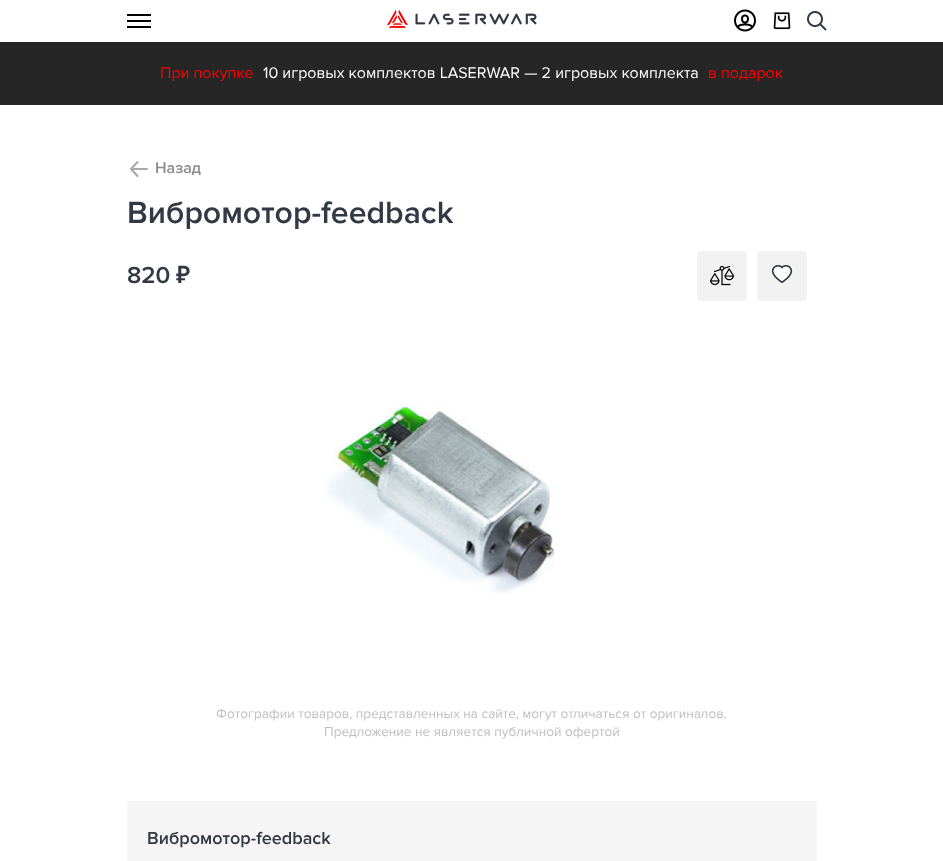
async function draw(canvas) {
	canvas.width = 943;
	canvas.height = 861;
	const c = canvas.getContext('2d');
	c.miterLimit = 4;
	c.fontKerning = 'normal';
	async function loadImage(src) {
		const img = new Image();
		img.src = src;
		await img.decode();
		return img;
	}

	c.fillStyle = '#fff';
	c.fillRect(0, 0, 943, 861);
	for (const [x, y, w, h, color] of [
		[127, 20, 24, 2, '#000'],
		[127, 14, 24, 2, '#000'],
		[127, 26, 24, 2, '#000'],
	]) {
		c.fillStyle = color;
		c.fillRect(x, y, w, h);
	}
	c.drawImage(await loadImage('img1.png'), 387, 10, 150, 18);
	c.drawImage(await loadImage('img2.png'), 734, 9, 22, 23);
	c.drawImage(await loadImage('img3.png'), 773, 12, 18, 18);
	c.drawImage(await loadImage('img4.png'), 807, 11, 20, 20);
	c.fillStyle = '#262626';
	c.fillRect(0, 42, 943, 63);
	c.font = '16px Proxima Nova';
	c.fillStyle = '#f00';
	c.fillText('При покупке', 160, 78);
	c.fillStyle = '#fff';
	c.fillText('10 игровых комплектов LASERWAR — 2 игровых комплекта', 263, 78);
	c.fillStyle = '#f00';
	c.fillText('в подарок', 708, 78);
	c.beginPath();
	c.moveTo(147, 169);
	c.lineTo(131, 169);
	c.moveTo(137.5, 162);
	c.lineTo(131, 169);
	c.lineTo(137.5, 176);
	c.strokeStyle = '#aaa9a9';
	c.lineWidth = 2;
	c.lineCap = 'round';
	c.lineJoin = 'round';
	c.stroke();
	c.font = '600 16px Proxima Nova';
	c.fillStyle = '#8c8c8c';
	c.fillText('Назад', 155, 173);
	c.font = '600 32px Proxima Nova';
	c.fillStyle = '#323844';
	c.fillText('Вибромотор-feedback', 127, 223);
	c.font = '600 24px Proxima Nova';
	c.fillText('820', 127, 283);
	c.font = '600 24px Noto Sans';
	c.fillText('₽', 176, 283);
	c.fillStyle = '#f2f2f2';
	c.beginPath();
	c.roundRect(697, 251, 50, 50, 4);
	c.fill();
	c.drawImage(await loadImage('img5.png'), 710, 265, 24, 21);
	c.beginPath();
	c.roundRect(757, 251, 50, 50, 4);
	c.fill();
	c.drawImage(await loadImage('img6.png'), 771, 264, 22, 19);
	c.drawImage(await loadImage('img7.png'), 324, 406, 231, 188);
	c.font = '13.6px Proxima Nova';
	c.fillStyle = '#bfbfbf';
	c.fillText('Фотографии товаров, представленных на сайте, могут отличаться от оригиналов.', 216, 718);
	c.fillText('Предложение не является публичной офертой', 324, 736);
	c.fillStyle = '#f5f5f5';
	c.fillRect(127, 801, 690, 60);
	c.font = '600 18px Proxima Nova';
	c.fillStyle = '#323844';
	c.fillText('Вибромотор-feedback', 147, 844);
}

draw(document.querySelector('canvas'));
